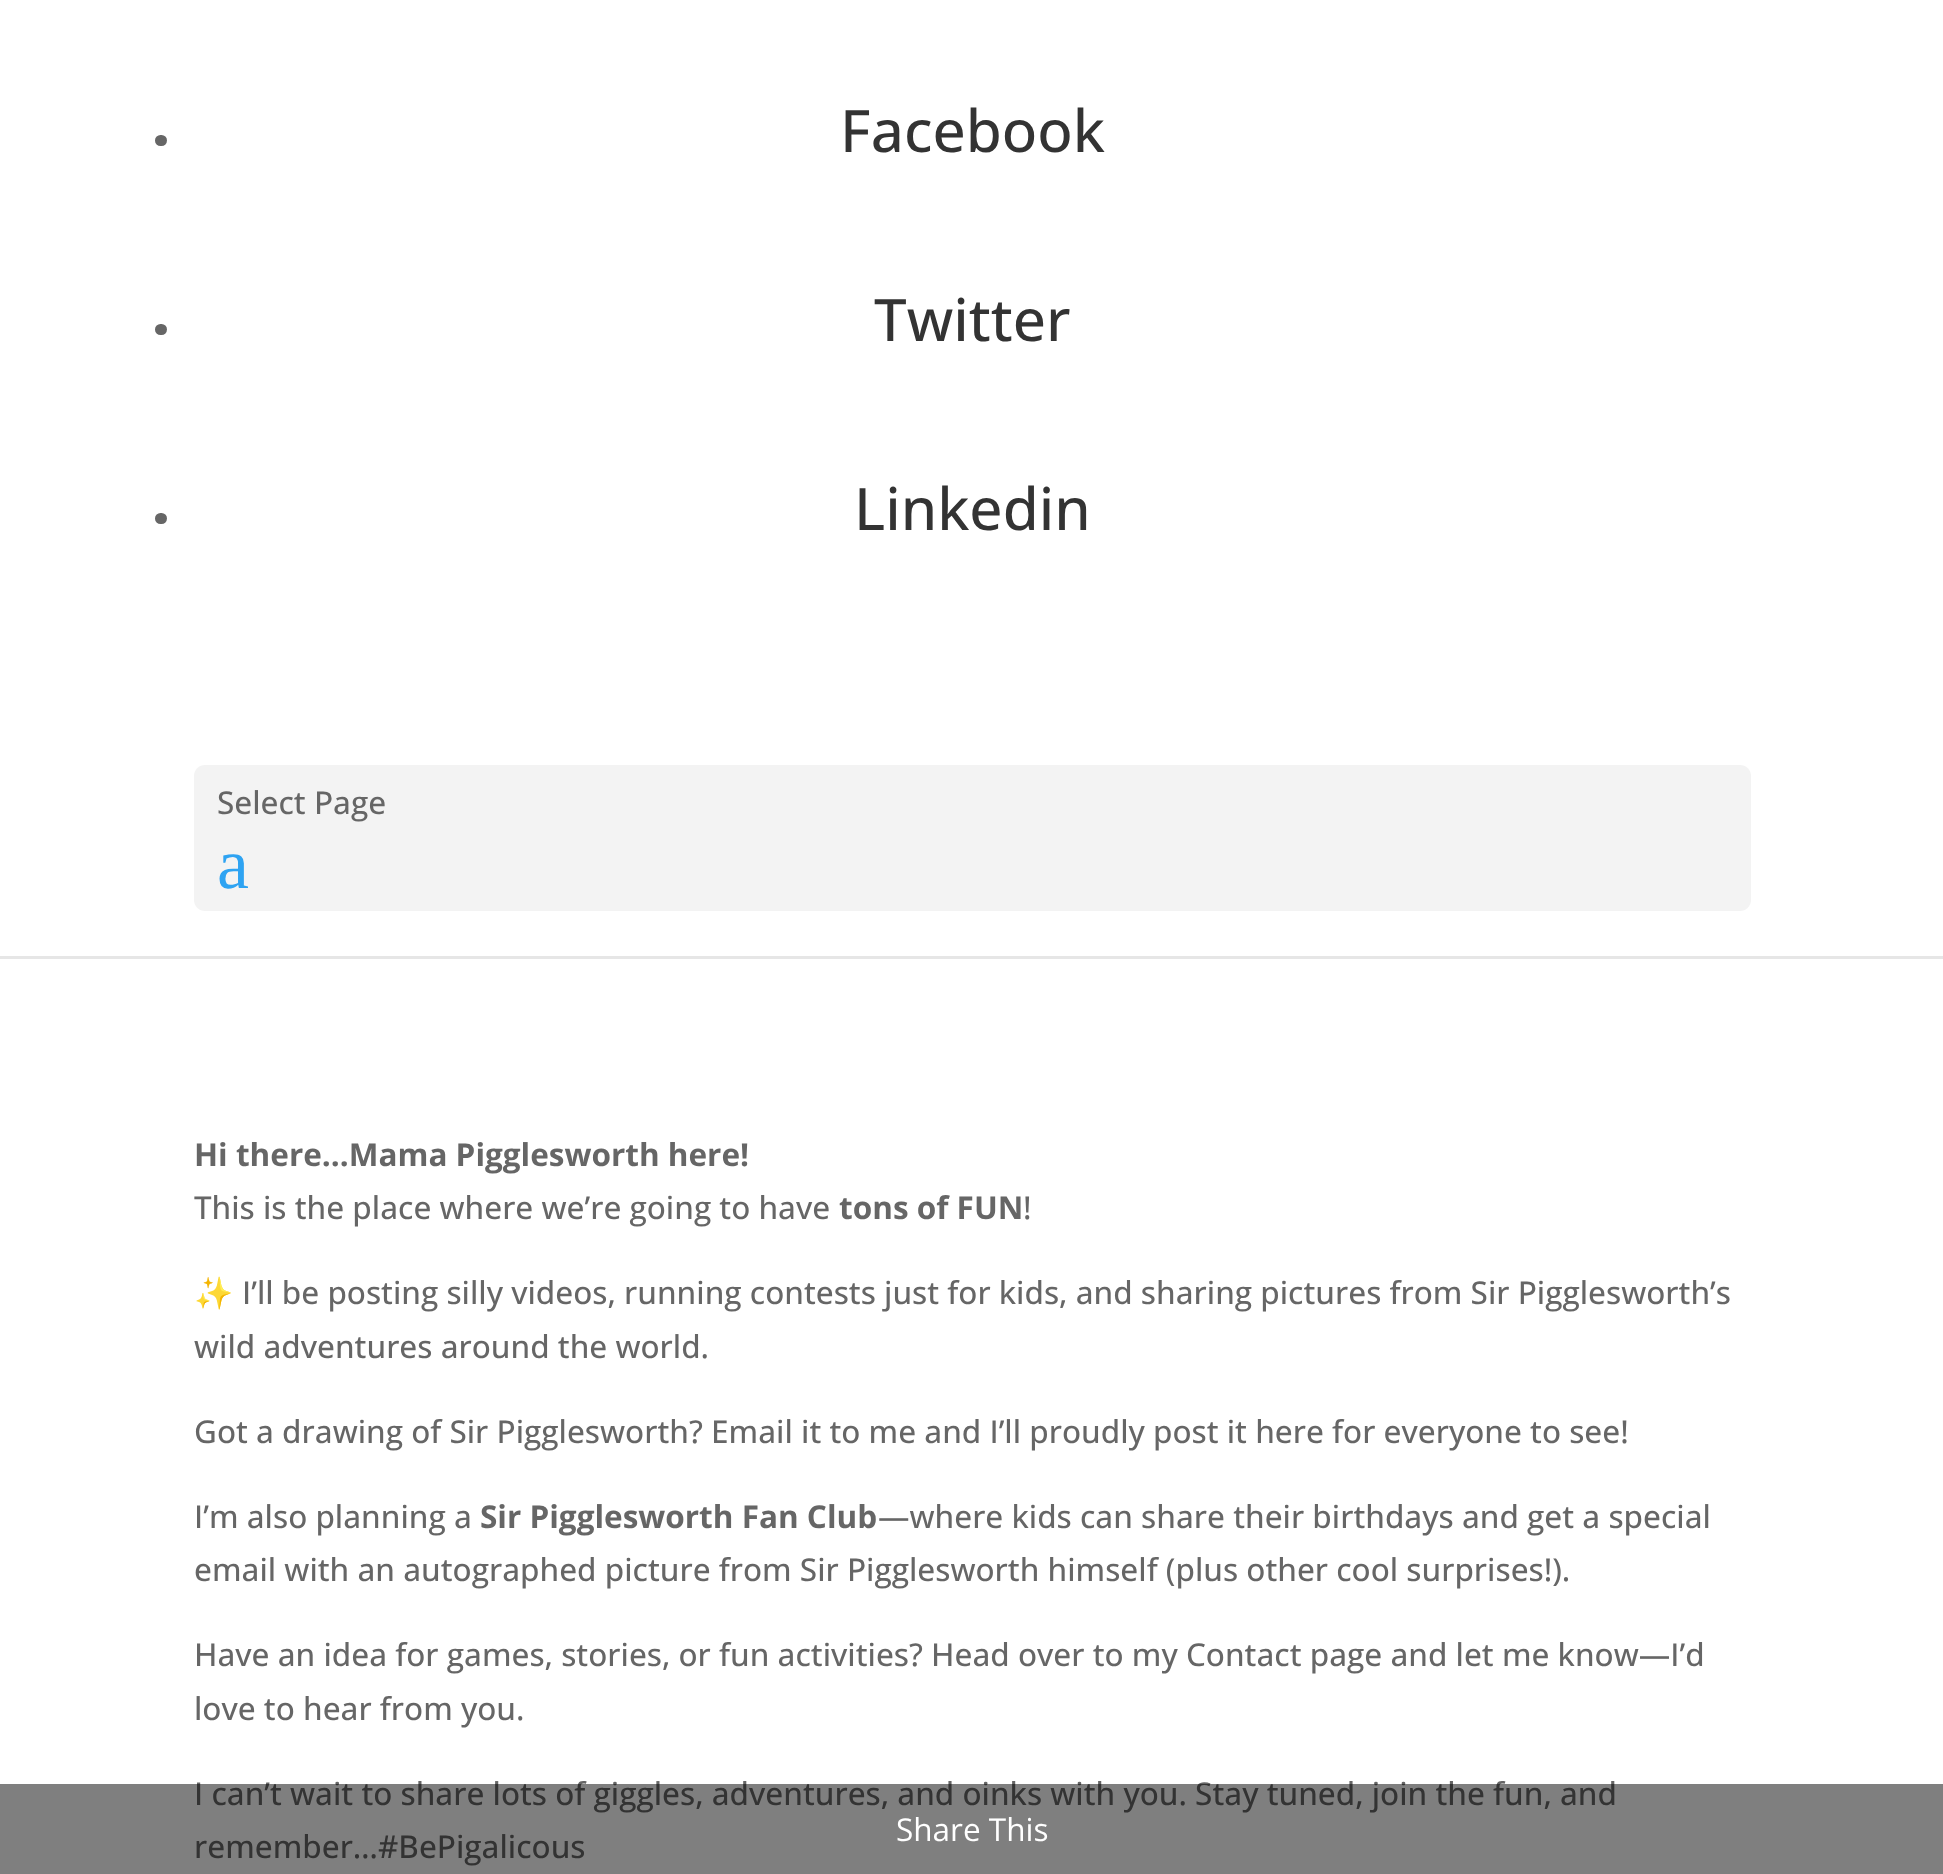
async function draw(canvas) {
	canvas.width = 1943;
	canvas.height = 1874;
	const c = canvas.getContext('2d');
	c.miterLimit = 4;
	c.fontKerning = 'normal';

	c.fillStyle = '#fff';
	c.fillRect(0, 0, 1943, 1874);
	c.fillStyle = '#e6e6e6';
	c.fillRect(0, 956, 1943, 3);
	c.fillStyle = '#666';
	c.beginPath();
	c.roundRect(155, 135, 12, 11, 5.5);
	c.fill();
	c.font = '500 58.5px Open Sans';
	c.fillStyle = '#333';
	c.fillText('Facebook', 840, 152);
	c.fillStyle = '#666';
	c.beginPath();
	c.roundRect(155, 324, 12, 11, 5.5);
	c.fill();
	c.fillStyle = '#333';
	c.fillText('Twitter', 874, 341);
	c.fillStyle = '#666';
	c.beginPath();
	c.roundRect(155, 513, 12, 11, 5.5);
	c.fill();
	c.fillStyle = '#333';
	c.fillText('Linkedin', 854, 530);
	c.fillStyle = '#f3f3f3';
	c.beginPath();
	c.roundRect(194, 765, 1557, 146, 11);
	c.fill();
	c.font = '500 31.5px Open Sans';
	c.fillStyle = '#666';
	c.fillText('Select Page', 217, 814);
	c.font = '72px Liberation Serif';
	c.fillStyle = '#2ea3f2';
	c.fillText('a', 217, 888);
	c.font = 'bold 31.5px Open Sans';
	c.fillStyle = '#666';
	c.fillText('Hi there…Mama Pigglesworth here!', 194, 1166);
	c.font = '500 31.5px Open Sans';
	c.fillText('This is the place where we’re going to have', 194, 1219);
	c.font = 'bold 31.5px Open Sans';
	c.fillText('tons of FUN', 839, 1219);
	c.font = '500 31.5px Open Sans';
	c.fillText('!', 1023, 1219);
	c.font = '31.5px Noto Color Emoji';
	c.fillText('✨', 194, 1304);
	c.font = '500 31.5px Open Sans';
	for (const [text, x, y] of [
		['I’ll be posting silly videos, running contests just for kids, and sharing pictures from Sir Pigglesworth’s', 242, 1304],
		['wild adventures around the world.', 194, 1358],
		['Got a drawing of Sir Pigglesworth? Email it to me and I’ll proudly post it here for everyone to see!', 194, 1443],
		['I’m also planning a', 194, 1528],
	]) {
		c.fillText(text, x, y);
	}
	c.font = 'bold 31.5px Open Sans';
	c.fillText('Sir Pigglesworth Fan Club', 480, 1528);
	c.font = '500 31.5px Open Sans';
	for (const [text, x, y] of [
		['—where kids can share their birthdays and get a special', 878, 1528],
		['email with an autographed picture from Sir Pigglesworth himself (plus other cool surprises!).', 194, 1581],
		['Have an idea for games, stories, or fun activities? Head over to my Contact page and let me know—I’d', 194, 1666],
		['love to hear from you.', 194, 1720],
		['I can’t wait to share lots of giggles, adventures, and oinks with you. Stay tuned, join the fun, and', 194, 1805],
		['remember…#BePigalicous', 194, 1858],
	]) {
		c.fillText(text, x, y);
	}
	c.fillStyle = '#00000080';
	c.fillRect(0, 1784, 1943, 90);
	c.font = '31.5px Open Sans';
	c.fillStyle = '#fff';
	c.fillText('Share This', 896, 1841);
}

draw(document.querySelector('canvas'));
